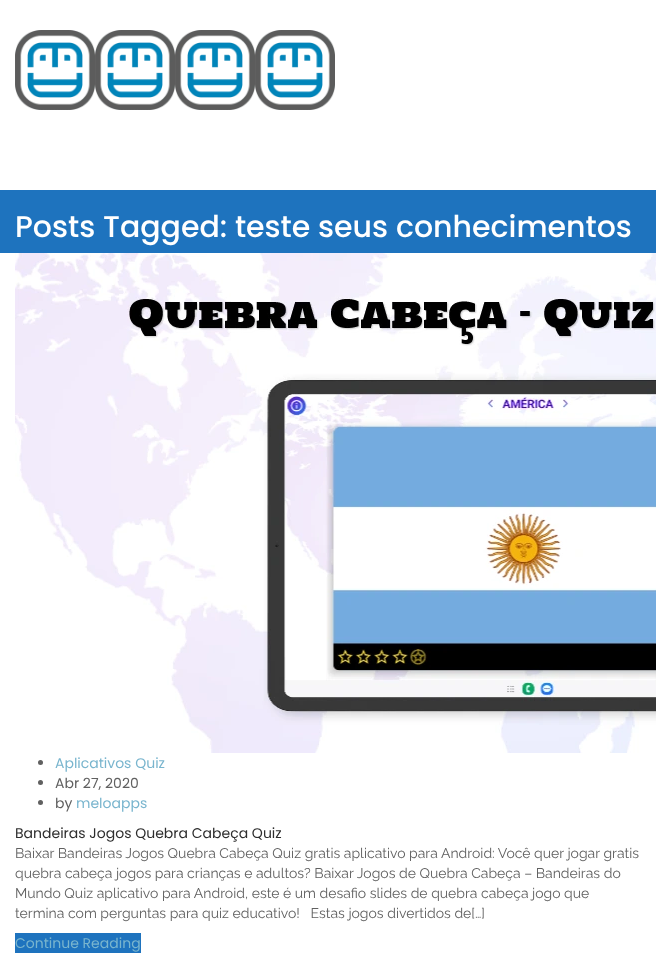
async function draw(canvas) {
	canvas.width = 656;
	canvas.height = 957;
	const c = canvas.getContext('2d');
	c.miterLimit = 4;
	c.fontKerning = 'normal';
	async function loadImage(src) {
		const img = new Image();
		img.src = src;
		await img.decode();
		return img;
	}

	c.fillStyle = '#fff';
	c.fillRect(0, 0, 656, 957);
	c.drawImage(await loadImage('img1.png'), 15, 30, 80, 80);
	c.drawImage(await loadImage('img2.png'), 95, 30, 80, 80);
	c.drawImage(await loadImage('img3.png'), 175, 30, 80, 80);
	c.drawImage(await loadImage('img2.png'), 255, 30, 80, 80);
	c.fillStyle = '#1e73be';
	c.fillRect(0, 190, 656, 63);
	c.font = '500 30px Poppins';
	c.fillStyle = '#fff';
	c.fillText('Posts Tagged: teste seus conhecimentos', 15, 237);
	c.drawImage(await loadImage('img4.png'), 15, 253, 641, 500);
	c.fillStyle = '#606060';
	c.beginPath();
	c.arc(40.5, 762.5, 2.5, 0, 2 * Math.PI);
	c.fill();
	c.font = '14px Poppins';
	c.fillStyle = '#79b5ce';
	c.fillText('Aplicativos Quiz', 55, 768);
	c.fillStyle = '#606060';
	c.beginPath();
	c.arc(40.5, 782.5, 2.5, 0, 2 * Math.PI);
	c.fill();
	c.fillText('Abr 27, 2020', 55, 788);
	c.beginPath();
	c.arc(40.5, 802.5, 2.5, 0, 2 * Math.PI);
	c.fill();
	c.fillText('by', 55, 808);
	c.fillStyle = '#79b5ce';
	c.fillText('meloapps', 76, 808);
	c.fillStyle = '#2d2d2d';
	c.fillText('Bandeiras Jogos Quebra Cabeça Quiz', 15, 838);
	c.font = '14px Raleway';
	c.fillStyle = '#606060';
	for (const [text, x, y] of [
		['Baixar Bandeiras Jogos Quebra Cabeça Quiz gratis aplicativo para Android: Você quer jogar gratis', 15, 858],
		['quebra cabeça jogos para crianças e adultos? Baixar Jogos de Quebra Cabeça – Bandeiras do', 15, 878],
		['Mundo Quiz aplicativo para Android, este é um desafio slides de quebra cabeça jogo que', 15, 898],
		['termina com perguntas para quiz educativo!   Estas jogos divertidos de[…]', 15, 918],
	]) {
		c.fillText(text, x, y);
	}
	c.fillStyle = '#1e73be';
	c.fillRect(15, 933, 126, 20);
	c.font = '14px Poppins';
	c.fillStyle = '#79b5ce';
	c.fillText('Continue Reading', 15, 948);
}

draw(document.querySelector('canvas'));
